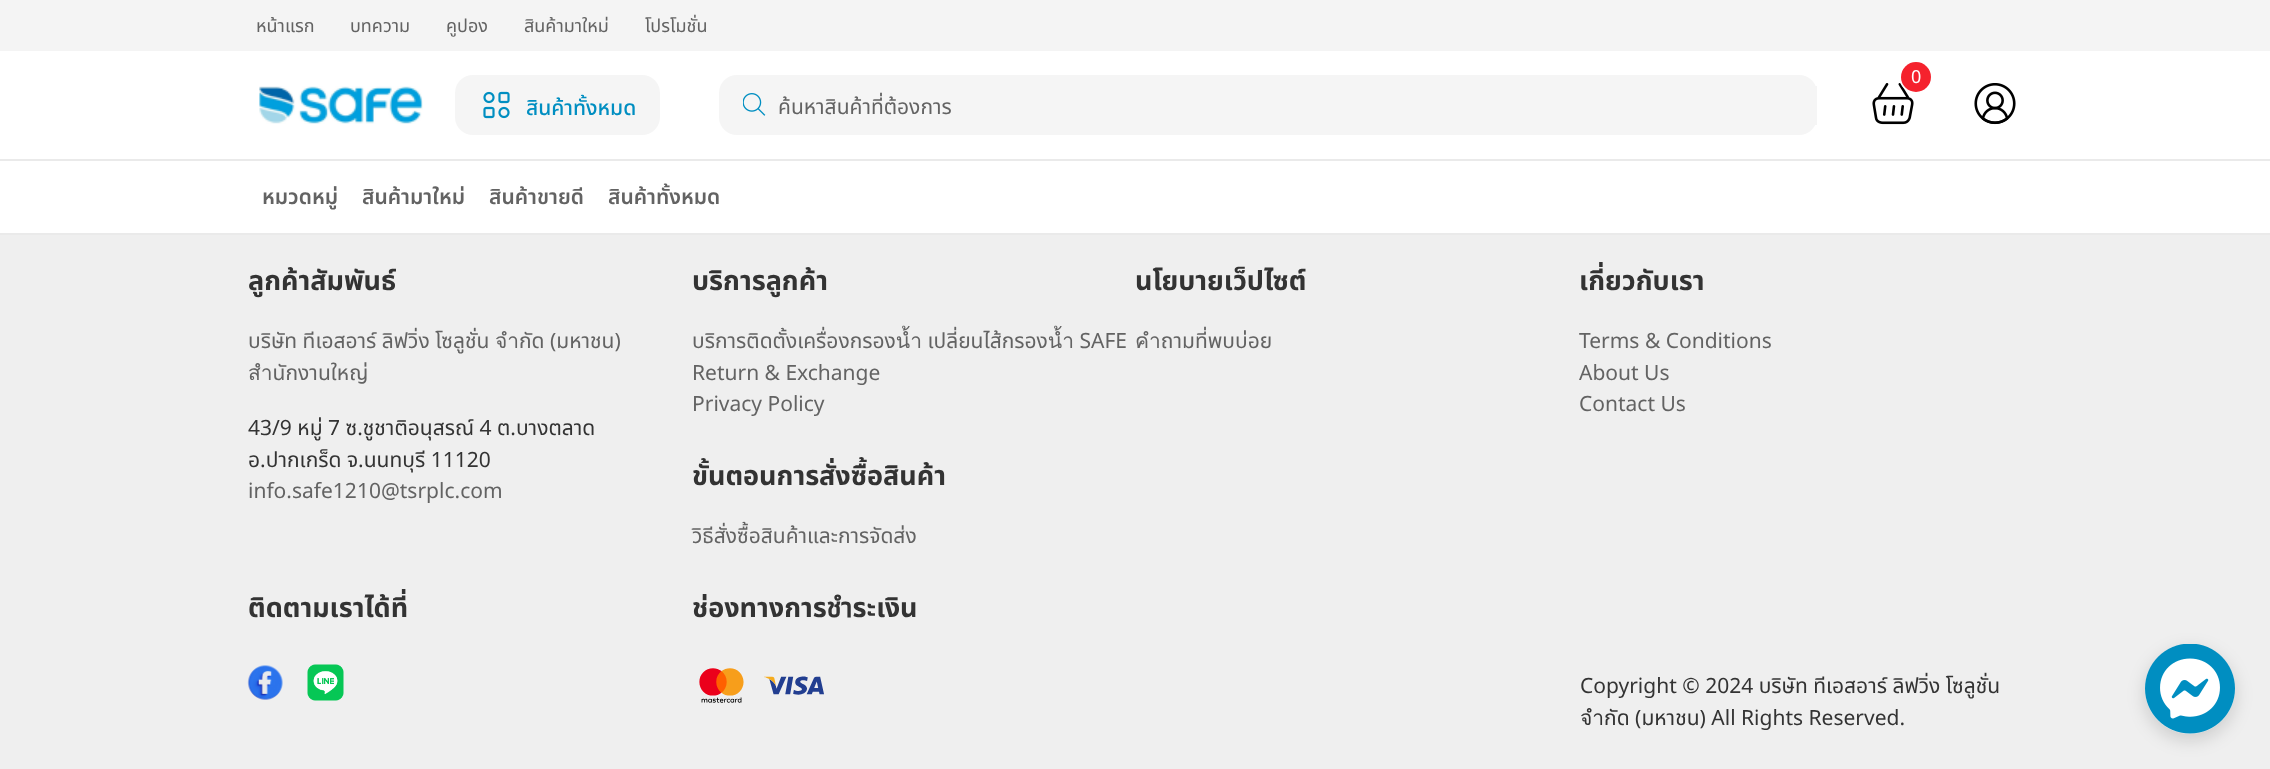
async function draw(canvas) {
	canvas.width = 2270;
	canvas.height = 769;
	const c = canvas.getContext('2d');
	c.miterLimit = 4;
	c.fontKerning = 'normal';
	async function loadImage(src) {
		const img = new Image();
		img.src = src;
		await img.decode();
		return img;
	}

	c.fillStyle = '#efefef';
	c.fillRect(0, 0, 2270, 769);
	c.fillStyle = '#fff';
	c.fillRect(0, 51, 2270, 182);
	c.fillStyle = '#f4f4f4';
	c.fillRect(0, 0, 2270, 51);
	c.font = '18px Noto Sans Thai';
	c.fillStyle = '#636363';
	for (const [text, x, y] of [
		['หน้าแรก', 256, 32],
		['บทความ', 350, 32],
		['คูปอง', 446, 32],
		['สินค้ามาใหม่', 524, 32],
		['โปรโมชั่น', 645, 32],
	]) {
		c.fillText(text, x, y);
	}
	c.drawImage(await loadImage('img1.png'), 1872, 83, 42, 42);
	c.beginPath();
	c.arc(1915.5, 76.5, 15.5, 0, 2 * Math.PI);
	c.strokeStyle = '#fff';
	c.lineWidth = 2;
	c.stroke();
	c.fillStyle = '#f5222d';
	c.beginPath();
	c.arc(1916, 77, 15, 0, 2 * Math.PI);
	c.fill();
	c.fillStyle = '#fff';
	c.fillText('0', 1911, 83);
	c.drawImage(await loadImage('img2.png'), 259, 86, 164, 38);
	c.fillStyle = '#f5f5f5';
	c.beginPath();
	c.roundRect(455, 75, 205, 60, 18);
	c.fill();
	c.drawImage(await loadImage('img3.png'), 483, 91, 27, 28);
	c.font = '500 21px Noto Sans Thai';
	c.fillStyle = '#008ec1';
	c.fillText('สินค้าทั้งหมด', 526, 115);
	c.fillStyle = '#f5f5f5';
	c.beginPath();
	c.roundRect(719, 75, 1098, 60, 18);
	c.fill();
	c.drawImage(await loadImage('img4.png'), 743, 93, 23, 23);
	c.fillRect(1815, 86, 2, 39);
	c.save();
	c.beginPath();
	c.rect(779, 92, 1035, 31);
	c.clip();
	c.font = '21px Noto Sans Thai';
	c.fillStyle = '#636363';
	c.fillText('ค้นหาสินค้าที่ต้องการ', 778, 114);
	c.restore();
	c.drawImage(await loadImage('img5.png'), 1974, 83, 42, 42);
	c.fillStyle = '#eaeaea';
	c.fillRect(0, 159, 2270, 2);
	c.font = '600 21px Noto Sans Thai';
	c.fillStyle = '#636363';
	c.fillText('หมวดหมู่', 262, 204);
	c.save();
	c.beginPath();
	c.rect(362, 179, 103, 36);
	c.clip();
	c.fillText('สินค้ามาใหม่', 362, 204);
	c.restore();
	c.save();
	c.beginPath();
	c.rect(489, 179, 95, 36);
	c.clip();
	c.fillText('สินค้าขายดี', 489, 204);
	c.restore();
	c.save();
	c.beginPath();
	c.rect(608, 179, 112, 36);
	c.clip();
	c.fillText('สินค้าทั้งหมด', 608, 204);
	c.restore();
	c.fillStyle = '#eaeaea';
	c.fillRect(0, 233, 2270, 2);
	c.font = 'bold 27px Noto Sans Thai';
	c.fillStyle = '#333';
	c.fillText('ลูกค้าสัมพันธ์', 248, 290);
	c.font = '21px Noto Sans Thai';
	c.fillStyle = '#636363';
	c.fillText('บริษัท ทีเอสอาร์ ลิฟวิ่ง โซลูชั่น จำกัด (มหาชน)', 248, 348);
	c.fillText('สำนักงานใหญ่', 248, 380);
	c.fillStyle = '#333';
	c.fillText('43/9 หมู่ 7 ซ.ชูชาติอนุสรณ์ 4 ต.บางตลาด', 248, 435);
	c.fillText('อ.ปากเกร็ด จ.นนทบุรี 11120', 248, 467);
	c.fillStyle = '#636363';
	c.fillText('info.safe1210@tsrplc.com', 248, 498);
	c.font = 'bold 27px Noto Sans Thai';
	c.fillStyle = '#333';
	c.fillText('บริการลูกค้า', 692, 290);
	c.font = '21px Noto Sans Thai';
	c.fillStyle = '#636363';
	for (const [text, x, y] of [
		['บริการติดตั้งเครื่องกรองน้ำ เปลี่ยนไส้กรองน้ำ SAFE', 692, 348],
		['Return & Exchange', 692, 380],
		['Privacy Policy', 692, 411],
	]) {
		c.fillText(text, x, y);
	}
	c.font = 'bold 27px Noto Sans Thai';
	c.fillStyle = '#333';
	c.fillText('นโยบายเว็ปไซต์', 1135, 290);
	c.font = '21px Noto Sans Thai';
	c.fillStyle = '#636363';
	c.fillText('คำถามที่พบบ่อย', 1135, 348);
	c.font = 'bold 27px Noto Sans Thai';
	c.fillStyle = '#333';
	c.fillText('เกี่ยวกับเรา', 1579, 290);
	c.font = '21px Noto Sans Thai';
	c.fillStyle = '#636363';
	for (const [text, x, y] of [
		['Terms & Conditions', 1579, 348],
		['About Us', 1579, 380],
		['Contact Us', 1579, 411],
	]) {
		c.fillText(text, x, y);
	}
	c.font = 'bold 27px Noto Sans Thai';
	c.fillStyle = '#333';
	c.fillText('ขั้นตอนการสั่งซื้อสินค้า', 692, 485);
	c.font = '21px Noto Sans Thai';
	c.fillStyle = '#636363';
	c.fillText('วิธีสั่งซื้อสินค้าและการจัดส่ง', 692, 543);
	c.font = 'bold 27px Noto Sans Thai';
	c.fillStyle = '#333';
	c.fillText('ติดตามเราได้ที่', 248, 617);
	c.fillText('ช่องทางการชำระเงิน', 692, 617);
	c.drawImage(await loadImage('img6.png'), 247, 665, 36, 35);
	c.drawImage(await loadImage('img7.png'), 307, 664, 37, 37);
	c.drawImage(await loadImage('img8.png'), 699, 668, 45, 35);
	c.drawImage(await loadImage('img9.png'), 764, 676, 60, 19);
	c.font = '21px Noto Sans Thai';
	c.fillText('Copyright © 2024 บริษัท ทีเอสอาร์ ลิฟวิ่ง โซลูชั่น', 1580, 693);
	c.fillText('จำกัด (มหาชน) All Rights Reserved.', 1580, 725);
	c.fillStyle = '#00000026';
	c.filter = 'blur(9px)';
	c.beginPath();
	c.roundRect(2145, 650, 90, 90, 45);
	c.fill();
	c.filter = 'none';
	c.fillStyle = '#efefef';
	c.beginPath();
	c.arc(2190, 689, 45, 0, 2 * Math.PI);
	c.fill();
	c.drawImage(await loadImage('img10.png'), 2145, 644, 90, 90);
}

draw(document.querySelector('canvas'));
